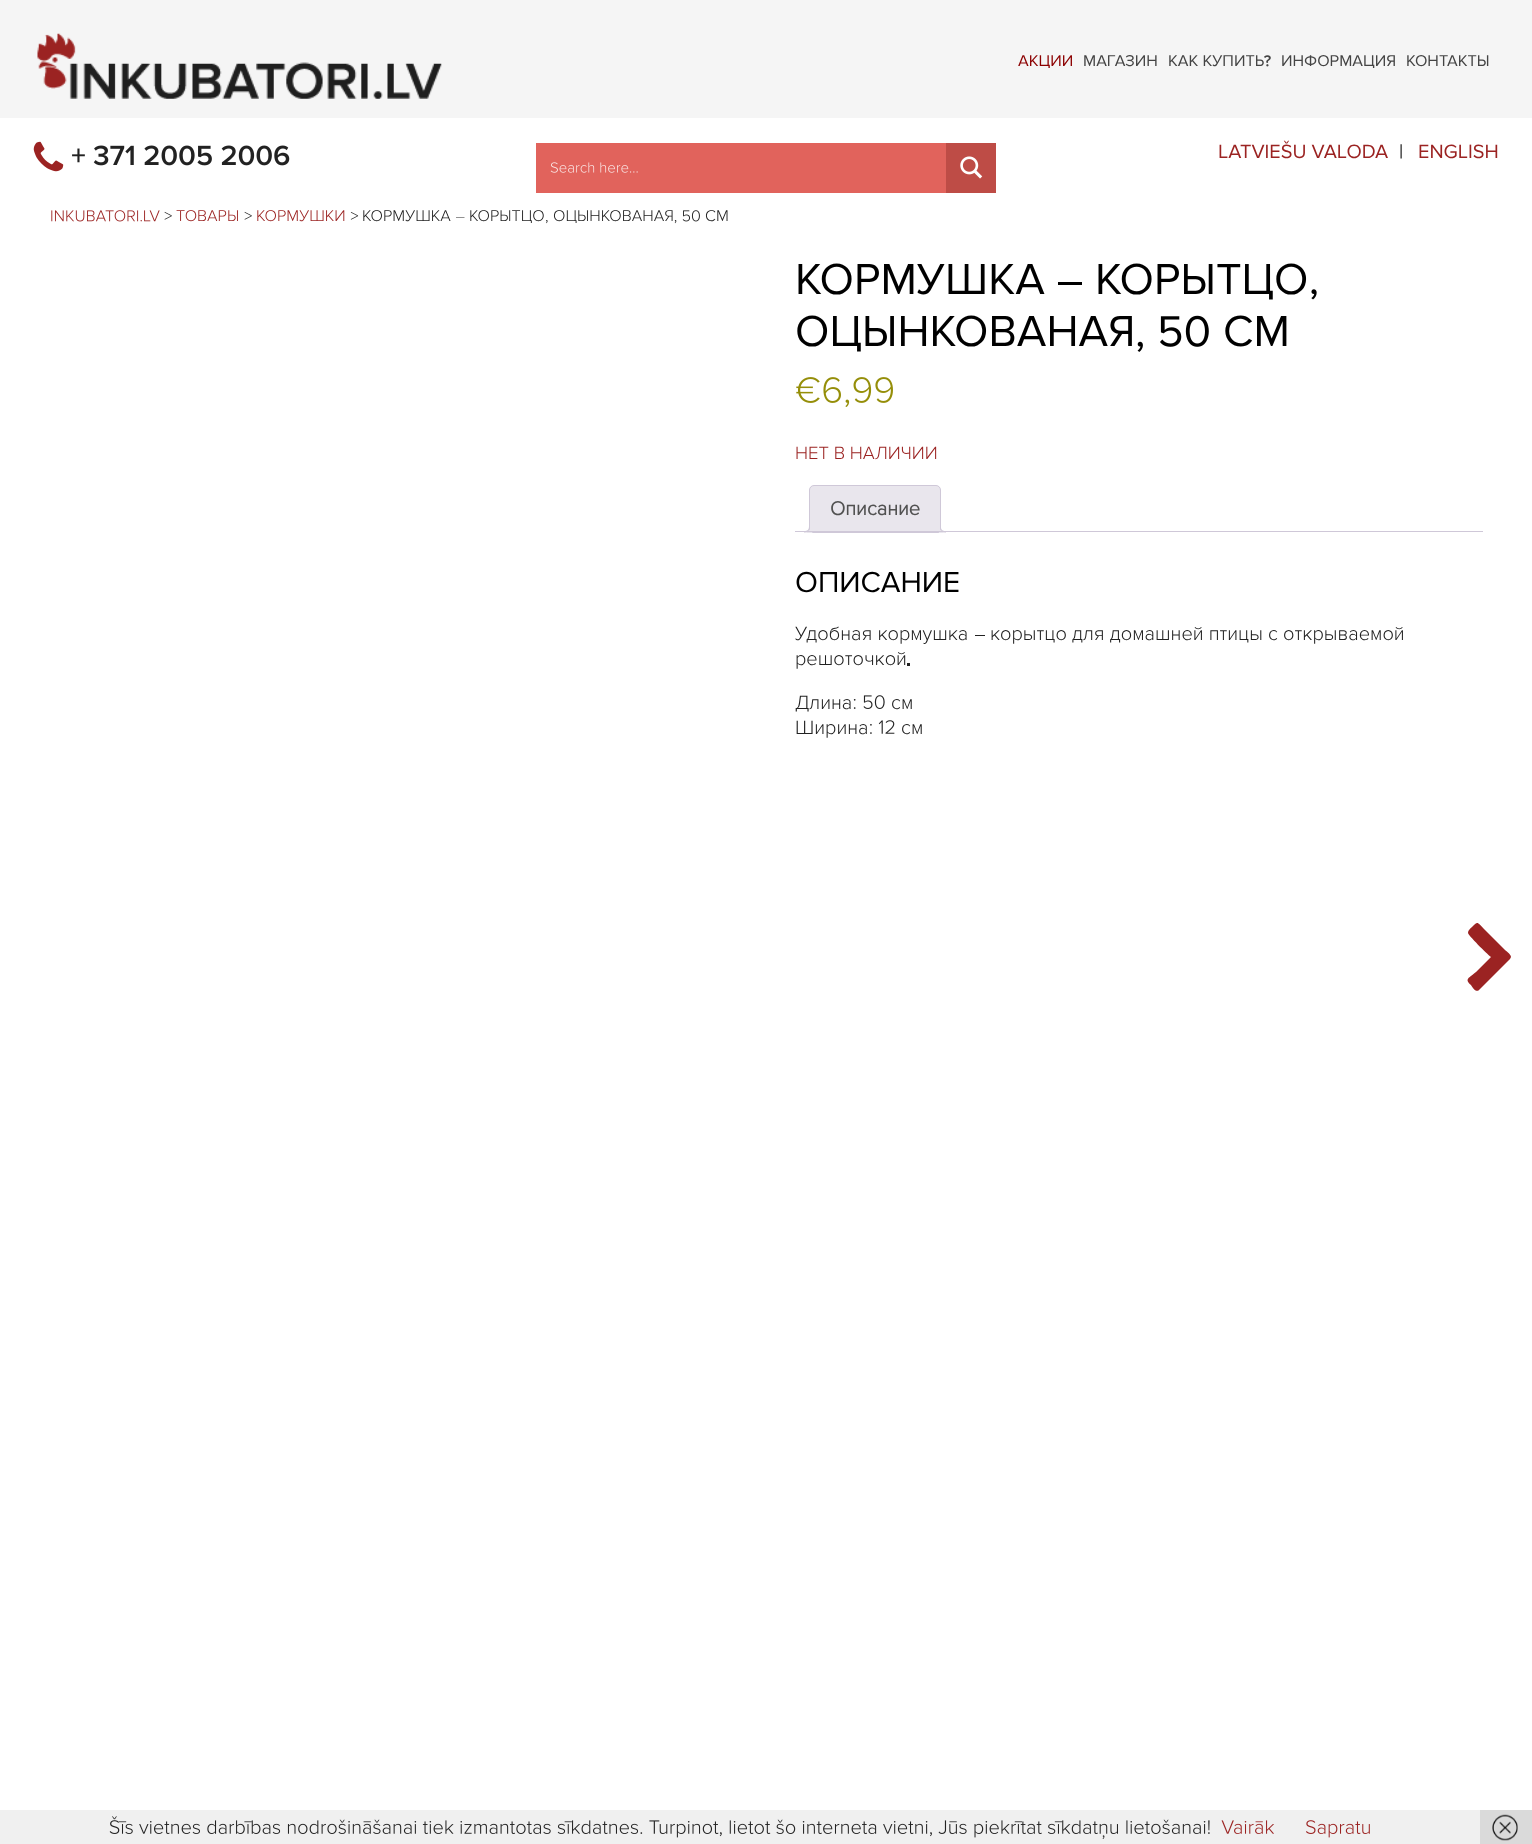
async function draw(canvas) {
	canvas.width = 1532;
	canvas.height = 1844;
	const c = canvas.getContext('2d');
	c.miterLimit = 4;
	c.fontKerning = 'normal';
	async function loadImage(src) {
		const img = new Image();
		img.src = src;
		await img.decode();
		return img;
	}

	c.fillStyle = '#fff';
	c.fillRect(0, 0, 1532, 1844);
	c.fillStyle = '#f5f5f5';
	c.fillRect(0, 0, 1532, 118);
	c.drawImage(await loadImage('img1.png'), 37, 33, 405, 66);
	c.font = '16.25px Proxima Nova';
	c.fillStyle = '#8c0000';
	c.fillText('АКЦИИ', 1018, 66);
	c.fillStyle = '#444';
	c.fillText('МАГАЗИН', 1083, 66);
	c.fillText('КАК КУПИТЬ', 1168, 66);
	c.drawImage(await loadImage('img2.png'), 1264, 55, 7, 12);
	c.fillText('ИНФОРМАЦИЯ', 1281, 66);
	c.fillText('КОНТАКТЫ', 1406, 66);
	c.drawImage(await loadImage('img3.png'), 33, 141, 31, 31);
	c.drawImage(await loadImage('img4.png'), 72, 145, 218, 21);
	c.fillStyle = '#e1635c';
	c.fillRect(536, 143, 410, 50);
	c.drawImage(await loadImage('img5.png'), 550, 162, 88, 11);
	c.fillStyle = '#be4c46';
	c.fillRect(946, 143, 50, 50);
	c.drawImage(await loadImage('img6.png'), 960, 156, 23, 23);
	c.font = '20px Proxima Nova';
	c.fillStyle = '#9b2322';
	c.fillText('LATVIEŠU VALODA', 1218, 158);
	c.fillStyle = '#000';
	c.fillText('|', 1399, 158);
	c.fillStyle = '#9b2322';
	c.fillText('ENGLISH', 1418, 158);
	c.drawImage(await loadImage('img7.png'), 51, 210, 109, 12);
	c.drawImage(await loadImage('img8.png'), 164, 211, 8, 9);
	c.font = '300 16.25px Proxima Nova';
	c.fillText('ТОВАРЫ', 176, 221);
	c.drawImage(await loadImage('img8.png'), 244, 211, 8, 9);
	c.fillText('КОРМУШКИ', 256, 221);
	c.drawImage(await loadImage('img9.png'), 350, 212, 9, 8);
	c.fillStyle = '#222';
	c.fillText('КОРМУШКА', 362, 221);
	c.fillText('КОРЫТЦО', 469, 221);
	c.beginPath();
	c.moveTo(464.5, 217.5);
	c.lineTo(464.5, 217);
	c.lineTo(456, 217);
	c.lineTo(456, 217.5);
	c.closePath();
	c.fill();
	c.fillText('ОЦЫНКОВАНАЯ', 553, 221);
	c.drawImage(await loadImage('img10.png'), 674, 210, 26, 14);
	c.fillText('СМ', 705, 221);
	c.drawImage(await loadImage('img11.png'), 546, 220, 2, 4);
	c.font = '45px Proxima Nova';
	c.fillStyle = '#000';
	c.fillText('КОРМУШКА', 795, 294);
	c.fillText('КОРЫТЦО', 1095, 294);
	c.fillRect(1058, 282, 24, 3);
	c.drawImage(await loadImage('img12.png'), 1311, 289, 6, 11);
	c.fillText('ОЦЫНКОВАНАЯ', 795, 346);
	c.drawImage(await loadImage('img13.png'), 1137, 315, 72, 37);
	c.fillText('СМ', 1223, 346);
	c.drawImage(await loadImage('img14.png'), 796, 377, 24, 26);
	c.drawImage(await loadImage('img15.png'), 823, 377, 70, 30);
	c.font = '300 18.5px Proxima Nova';
	c.fillStyle = '#9b2322';
	c.fillText('НЕТ В НАЛИЧИИ', 795, 459);
	c.fillStyle = '#e9e6ed';
	c.beginPath();
	c.roundRect(809.5, 485.5, 131, 47, [4.5, 4.5, 0, 0]);
	c.fill();
	c.strokeStyle = '#cfc8d8';
	c.stroke();
	c.font = 'bold 20px Proxima Nova';
	c.fillStyle = '#515151';
	c.fillText('Описание', 830, 515);
	c.save();
	c.beginPath();
	c.rect(795, 485, 688, 48);
	c.clip();
	c.fillStyle = '#e9e6ed';
	c.beginPath();
	c.moveTo(806, 532.5);
	c.lineTo(806, 535);
	c.bezierCurveTo(810.5, 535, 813, 534, 813, 529);
	c.lineTo(810, 529);
	c.bezierCurveTo(809, 530.5, 808, 532, 806, 532.5);
	c.closePath();
	c.fill();
	c.restore();
	c.fillStyle = '#cfc8d8';
	c.beginPath();
	c.moveTo(804, 526);
	c.lineTo(810, 526);
	c.bezierCurveTo(810, 530.5, 808, 532.5, 804, 532.5);
	c.closePath();
	c.moveTo(804, 526);
	c.lineTo(809, 526);
	c.bezierCurveTo(809, 530, 807.5, 531, 804, 531);
	c.closePath();
	c.fill('evenodd');
	c.save();
	c.beginPath();
	c.rect(795, 485, 688, 48);
	c.clip();
	c.fillStyle = '#e9e6ed';
	c.beginPath();
	c.moveTo(938, 529);
	c.bezierCurveTo(938, 533, 940, 535, 944, 535);
	c.lineTo(944, 532.5);
	c.bezierCurveTo(942, 532, 941, 530.5, 940, 529);
	c.closePath();
	c.fill();
	c.restore();
	c.beginPath();
	c.moveTo(940, 526);
	c.lineTo(946, 526);
	c.lineTo(946, 532.5);
	c.bezierCurveTo(943, 532.5, 940, 531, 940, 527.5);
	c.closePath();
	c.moveTo(941, 526);
	c.lineTo(946, 526);
	c.lineTo(946, 531);
	c.bezierCurveTo(944, 531, 941, 530.5, 941, 527.5);
	c.closePath();
	c.fill('evenodd');
	c.fillRect(795, 531, 688, 1);
	c.font = '30px Proxima Nova';
	c.fillStyle = '#000';
	c.fillText('ОПИСАНИЕ', 795, 592);
	c.font = '300 20px Proxima Nova';
	c.fillStyle = '#222';
	c.fillText('Удобная кормушка', 795, 640);
	c.fillText('корытцо для домашней птицы с открываемой', 990, 640);
	c.fillRect(975, 635, 10, 1);
	c.fillText('решоточкой', 795, 665);
	c.fillRect(907, 663, 3, 3);
	c.fillText('Длина', 795, 709);
	c.drawImage(await loadImage('img16.png'), 853, 695, 32, 14);
	c.fillText('см', 891, 709);
	c.fillText('Ширина', 795, 734);
	c.drawImage(await loadImage('img17.png'), 870, 720, 25, 14);
	c.fillText('см', 901, 734);
	c.fillStyle = '#9b2322';
	c.beginPath();
	c.moveTo(1510, 959);
	c.lineTo(1479, 990);
	c.bezierCurveTo(1476, 993, 1472, 987, 1471, 985);
	c.bezierCurveTo(1464, 979, 1469, 978, 1476, 972);
	c.lineTo(1491, 957);
	c.bezierCurveTo(1487, 954, 1468, 935, 1468, 933);
	c.bezierCurveTo(1468, 930, 1470, 929, 1472, 927);
	c.bezierCurveTo(1478, 921, 1477, 922, 1484, 929);
	c.lineTo(1505, 950);
	c.bezierCurveTo(1505, 950, 1511, 954, 1511, 957);
	c.closePath();
	c.fill();
	c.fillStyle = '#f0f0f0';
	c.fillRect(0, 1810, 1480, 34);
	c.drawImage(await loadImage('img18.png'), 109, 1816, 1101, 23);
	c.drawImage(await loadImage('img19.png'), 1221, 1820, 53, 14);
	c.drawImage(await loadImage('img20.png'), 1306, 1820, 64, 18);
	c.fillStyle = '#dadada';
	c.fillRect(1480, 1810, 52, 34);
	c.drawImage(await loadImage('img21.png'), 1492, 1814, 26, 27);
}

draw(document.querySelector('canvas'));
